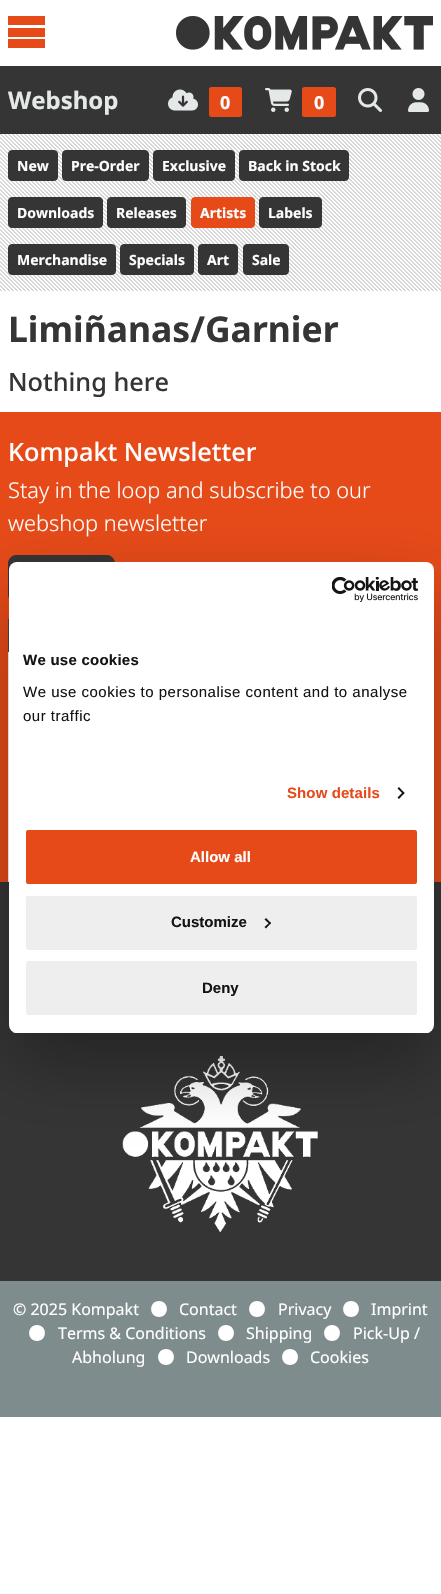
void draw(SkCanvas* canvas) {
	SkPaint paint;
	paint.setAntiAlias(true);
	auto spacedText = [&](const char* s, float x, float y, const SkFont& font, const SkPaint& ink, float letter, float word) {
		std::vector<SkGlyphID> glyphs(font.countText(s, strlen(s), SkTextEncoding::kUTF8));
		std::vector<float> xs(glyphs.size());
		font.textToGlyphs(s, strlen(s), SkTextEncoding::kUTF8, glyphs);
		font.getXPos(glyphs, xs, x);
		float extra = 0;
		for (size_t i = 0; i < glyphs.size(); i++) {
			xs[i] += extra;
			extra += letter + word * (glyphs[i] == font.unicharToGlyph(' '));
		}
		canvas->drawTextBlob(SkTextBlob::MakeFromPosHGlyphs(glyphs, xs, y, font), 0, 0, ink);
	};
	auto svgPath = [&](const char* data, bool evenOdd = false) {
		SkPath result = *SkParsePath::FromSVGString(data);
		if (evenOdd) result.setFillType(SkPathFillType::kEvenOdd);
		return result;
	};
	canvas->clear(0xffffffff);
	paint.setColor(0xffe64a19);
	canvas->drawRect(SkRect::MakeXYWH(8, 16, 37, 9), paint);
	canvas->drawRect(SkRect::MakeXYWH(8, 28, 37, 9), paint);
	canvas->drawRect(SkRect::MakeXYWH(8, 39, 37, 9), paint);
	canvas->drawImageRect(SkImages::DeferredFromEncodedData(SkData::MakeFromFileName("img1.png")), SkRect::MakeXYWH(176, 16, 257, 34), SkSamplingOptions());
	paint.setColor(0xff353535);
	canvas->drawRect(SkRect::MakeXYWH(0, 66, 441, 68), paint);
	SkFont f1(fontMgr->matchFamilyStyle("Noto Sans", SkFontStyle::Bold()), 24);
	f1.setSubpixel(true);
	paint.setColor(0xffe5e8e8);
	canvas->drawString("Webshop", 8, 109, f1, paint);
	canvas->drawImageRect(SkImages::DeferredFromEncodedData(SkData::MakeFromFileName("img2.png")), SkRect::MakeXYWH(168, 89, 30, 22), SkSamplingOptions());
	paint.setColor(0xffe64a19);
	canvas->drawRoundRect(SkRect::MakeXYWH(209, 87, 33, 30), 2.5, 2.5, paint);
	SkFont f2(fontMgr->matchFamilyStyle("Noto Sans", SkFontStyle::Bold()), 18);
	f2.setSubpixel(true);
	paint.setColor(0xffffffff);
	canvas->drawString("0", 220, 109, f2, paint);
	canvas->drawImageRect(SkImages::DeferredFromEncodedData(SkData::MakeFromFileName("img3.png")), SkRect::MakeXYWH(265, 88, 27, 24), SkSamplingOptions());
	paint.setColor(0xffe64a19);
	canvas->drawRoundRect(SkRect::MakeXYWH(302, 87, 34, 30), 2.5, 2.5, paint);
	paint.setColor(0xffffffff);
	canvas->drawString("0", 314, 109, f2, paint);
	canvas->drawImageRect(SkImages::DeferredFromEncodedData(SkData::MakeFromFileName("img4.png")), SkRect::MakeXYWH(358, 88, 24, 24), SkSamplingOptions());
	canvas->drawImageRect(SkImages::DeferredFromEncodedData(SkData::MakeFromFileName("img5.png")), SkRect::MakeXYWH(408, 88, 21, 24), SkSamplingOptions());
	canvas->drawImageRect(SkImages::DeferredFromEncodedData(SkData::MakeFromFileName("img6.png")), SkRect::MakeXYWH(0, 134, 441, 157), SkSamplingOptions());
	paint.setColor(0xff353535);
	canvas->drawRoundRect(SkRect::MakeXYWH(8.5, 150.5, 49, 30), 3.5, 3.5, paint);
	paint.setStroke(true);
	paint.setStrokeWidth(1);
	canvas->drawRoundRect(SkRect::MakeXYWH(8.5, 150.5, 49, 30), 3.5, 3.5, paint);
	SkFont f3(fontMgr->matchFamilyStyle("Noto Sans", SkFontStyle::Bold()), 14);
	f3.setSubpixel(true);
	paint.setStroke(false);
	paint.setColor(0xffffffff);
	canvas->drawString("New", 17, 171, f3, paint);
	paint.setColor(0xff353535);
	canvas->drawRoundRect(SkRect::MakeXYWH(62.5, 150.5, 86, 30), 3.5, 3.5, paint);
	paint.setStroke(true);
	canvas->drawRoundRect(SkRect::MakeXYWH(62.5, 150.5, 86, 30), 3.5, 3.5, paint);
	paint.setStroke(false);
	paint.setColor(0xffffffff);
	canvas->drawString("Pre-Order", 71, 171, f3, paint);
	paint.setColor(0xff353535);
	canvas->drawRoundRect(SkRect::MakeXYWH(153.5, 150.5, 81, 30), 3.5, 3.5, paint);
	paint.setStroke(true);
	canvas->drawRoundRect(SkRect::MakeXYWH(153.5, 150.5, 81, 30), 3.5, 3.5, paint);
	paint.setStroke(false);
	paint.setColor(0xffffffff);
	canvas->drawString("Exclusive", 162, 171, f3, paint);
	paint.setColor(0xff353535);
	canvas->drawRoundRect(SkRect::MakeXYWH(239.5, 150.5, 109, 30), 3.5, 3.5, paint);
	paint.setStroke(true);
	canvas->drawRoundRect(SkRect::MakeXYWH(239.5, 150.5, 109, 30), 3.5, 3.5, paint);
	paint.setStroke(false);
	paint.setColor(0xffffffff);
	canvas->drawString("Back in Stock", 248, 171, f3, paint);
	paint.setColor(0xff353535);
	canvas->drawRoundRect(SkRect::MakeXYWH(8.5, 197.5, 94, 30), 3.5, 3.5, paint);
	paint.setStroke(true);
	canvas->drawRoundRect(SkRect::MakeXYWH(8.5, 197.5, 94, 30), 3.5, 3.5, paint);
	paint.setStroke(false);
	paint.setColor(0xffffffff);
	canvas->drawString("Downloads", 17, 218, f3, paint);
	paint.setColor(0xff353535);
	canvas->drawRoundRect(SkRect::MakeXYWH(107.5, 197.5, 78, 30), 3.5, 3.5, paint);
	paint.setStroke(true);
	canvas->drawRoundRect(SkRect::MakeXYWH(107.5, 197.5, 78, 30), 3.5, 3.5, paint);
	paint.setStroke(false);
	paint.setColor(0xffffffff);
	canvas->drawString("Releases", 116, 218, f3, paint);
	paint.setColor(0xffe64a19);
	canvas->drawRoundRect(SkRect::MakeXYWH(191.5, 197.5, 63, 30), 3.5, 3.5, paint);
	paint.setStroke(true);
	canvas->drawRoundRect(SkRect::MakeXYWH(191.5, 197.5, 63, 30), 3.5, 3.5, paint);
	paint.setStroke(false);
	paint.setColor(0xffffffff);
	canvas->drawString("Artists", 200, 218, f3, paint);
	paint.setColor(0xff353535);
	canvas->drawRoundRect(SkRect::MakeXYWH(259.5, 197.5, 62, 30), 3.5, 3.5, paint);
	paint.setStroke(true);
	canvas->drawRoundRect(SkRect::MakeXYWH(259.5, 197.5, 62, 30), 3.5, 3.5, paint);
	paint.setStroke(false);
	paint.setColor(0xffffffff);
	canvas->drawString("Labels", 268, 218, f3, paint);
	paint.setColor(0xff353535);
	canvas->drawRoundRect(SkRect::MakeXYWH(8.5, 244.5, 107, 30), 3.5, 3.5, paint);
	paint.setStroke(true);
	canvas->drawRoundRect(SkRect::MakeXYWH(8.5, 244.5, 107, 30), 3.5, 3.5, paint);
	paint.setStroke(false);
	paint.setColor(0xffffffff);
	canvas->drawString("Merchandise", 17, 265, f3, paint);
	paint.setColor(0xff353535);
	canvas->drawRoundRect(SkRect::MakeXYWH(120.5, 244.5, 73, 30), 3.5, 3.5, paint);
	paint.setStroke(true);
	canvas->drawRoundRect(SkRect::MakeXYWH(120.5, 244.5, 73, 30), 3.5, 3.5, paint);
	paint.setStroke(false);
	paint.setColor(0xffffffff);
	canvas->drawString("Specials", 129, 265, f3, paint);
	paint.setColor(0xff353535);
	canvas->drawRoundRect(SkRect::MakeXYWH(198.5, 244.5, 39, 30), 3.5, 3.5, paint);
	paint.setStroke(true);
	canvas->drawRoundRect(SkRect::MakeXYWH(198.5, 244.5, 39, 30), 3.5, 3.5, paint);
	paint.setStroke(false);
	paint.setColor(0xffffffff);
	canvas->drawString("Art", 207, 265, f3, paint);
	paint.setColor(0xff353535);
	canvas->drawRoundRect(SkRect::MakeXYWH(243.5, 244.5, 45, 30), 3.5, 3.5, paint);
	paint.setStroke(true);
	canvas->drawRoundRect(SkRect::MakeXYWH(243.5, 244.5, 45, 30), 3.5, 3.5, paint);
	paint.setStroke(false);
	paint.setColor(0xffffffff);
	canvas->drawString("Sale", 252, 265, f3, paint);
	SkFont f4(fontMgr->matchFamilyStyle("Noto Sans", SkFontStyle::Bold()), 35.5);
	f4.setSubpixel(true);
	paint.setColor(0xff353535);
	canvas->drawString("Limiñanas/Garnier", 8, 342, f4, paint);
	SkFont f5(fontMgr->matchFamilyStyle("Noto Sans", SkFontStyle(500, SkFontStyle::kNormal_Width, SkFontStyle::kUpright_Slant)), 25.25);
	f5.setSubpixel(true);
	canvas->drawString("Nothing here", 8, 391, f5, paint);
	paint.setColor(0xffe64a19);
	canvas->drawRect(SkRect::MakeXYWH(0, 412, 441, 470), paint);
	paint.setColor(0xffffffff);
	canvas->drawString("Kompakt Newsletter", 8, 461, f5, paint);
	SkFont f6(fontMgr->matchFamilyStyle("Noto Sans", SkFontStyle(300, SkFontStyle::kNormal_Width, SkFontStyle::kUpright_Slant)), 21.75);
	f6.setSubpixel(true);
	canvas->drawString("Stay in the loop and subscribe to our", 8, 498, f6, paint);
	canvas->drawString("webshop newsletter", 8, 531, f6, paint);
	paint.setColor(0xff353535);
	canvas->drawRoundRect(SkRect::MakeXYWH(8.5, 555.5, 106, 47), 7.5, 7.5, paint);
	paint.setStroke(true);
	canvas->drawRoundRect(SkRect::MakeXYWH(8.5, 555.5, 106, 47), 7.5, 7.5, paint);
	canvas->drawImageRect(SkImages::DeferredFromEncodedData(SkData::MakeFromFileName("img7.png")), SkRect::MakeXYWH(8, 619, 1, 263), SkSamplingOptions());
	paint.setStroke(false);
	canvas->drawRect(SkRect::MakeXYWH(0, 882, 441, 399), paint);
	canvas->drawImageRect(SkImages::DeferredFromEncodedData(SkData::MakeFromFileName("img8.png")), SkRect::MakeXYWH(122, 1056, 196, 177), SkSamplingOptions());
	paint.setColor(0xff7f8c8d);
	canvas->drawRect(SkRect::MakeXYWH(0, 1281, 441, 136), paint);
	SkFont f7(fontMgr->matchFamilyStyle("Noto Sans", SkFontStyle::Normal()), 16);
	f7.setSubpixel(true);
	paint.setColor(0xffffffff);
	canvas->drawString("© 2025 Kompakt", 13, 1315, f7, paint);
	canvas->drawPath(svgPath("M159 1317C169.5 1317 169.5 1301 159 1301C148.5 1301 148.5 1317 159 1317Z"), paint);
	canvas->drawString("Contact", 179, 1315, f7, paint);
	canvas->drawPath(svgPath("M257 1317C267.5 1317 267.5 1301 257 1301C246.5 1301 246.5 1317 257 1317Z"), paint);
	canvas->drawString("Privacy", 278, 1315, f7, paint);
	canvas->drawPath(svgPath("M351 1317C361.5 1317 361.5 1301 351 1301C340.5 1301 340.5 1317 351 1317Z"), paint);
	canvas->drawString("Imprint", 371, 1315, f7, paint);
	canvas->drawPath(svgPath("M37 1341C47.5 1341 47.5 1325 37 1325C26.5 1325 26.5 1341 37 1341Z"), paint);
	canvas->drawString("Terms & Conditions", 58, 1339, f7, paint);
	canvas->drawPath(svgPath("M226 1341C236.5 1341 236.5 1325 226 1325C215.5 1325 215.5 1341 226 1341Z"), paint);
	canvas->drawString("Shipping", 246, 1339, f7, paint);
	canvas->drawPath(svgPath("M332 1341C342.5 1341 342.5 1325 332 1325C321.5 1325 321.5 1341 332 1341Z"), paint);
	canvas->drawString("Pick-Up /", 353, 1339, f7, paint);
	canvas->drawString("Abholung", 72, 1363, f7, paint);
	canvas->drawPath(svgPath("M166 1365C176.5 1365 176.5 1349 166 1349C155.5 1349 155.5 1365 166 1365Z"), paint);
	canvas->drawString("Downloads", 186, 1363, f7, paint);
	canvas->drawPath(svgPath("M290 1365C300.5 1365 300.5 1349 290 1349C279.5 1349 279.5 1365 290 1365Z"), paint);
	canvas->drawString("Cookies", 310, 1363, f7, paint);
	paint.setColor(0x4d000000);
	paint.setMaskFilter(SkMaskFilter::MakeBlur(kNormal_SkBlurStyle, 34));
	canvas->drawRoundRect(SkRect::MakeXYWH(9, 594, 425, 471), 8, 8, paint);
	paint.setMaskFilter(nullptr);
	paint.setColor(0xffffffff);
	canvas->drawRoundRect(SkRect::MakeXYWH(9, 562, 425, 471), 8, 8, paint);
	canvas->drawImageRect(SkImages::DeferredFromEncodedData(SkData::MakeFromFileName("img9.png")), SkRect::MakeXYWH(332, 577, 87, 25), SkSamplingOptions());
	SkFont f8(fontMgr->matchFamilyStyle("Liberation Sans", SkFontStyle::Bold()), 15);
	f8.setSubpixel(true);
	paint.setColor(0xff141414);
	spacedText("We use cookies", 23, 665, f8, paint, 0.25, 0);
	SkFont f9(fontMgr->matchFamilyStyle("Liberation Sans", SkFontStyle::Normal()), 15);
	f9.setSubpixel(true);
	spacedText("We use cookies to personalise content and to analyse", 23, 697, f9, paint, 0.5, 0);
	spacedText("our traffic", 23, 721, f9, paint, 0.5, 0);
	paint.setColor(0xffe64a19);
	spacedText("Show details", 287, 798, f8, paint, 0.1, 0);
	paint.setColor(0xff141414);
	canvas->drawPath(svgPath("M399 787L404.5 793L403.5 794.5L397.5 788.5Z"), paint);
	canvas->drawPath(svgPath("M403.5 791.5L404.5 793L399 799L397.5 797.5Z"), paint);
	canvas->save();
	canvas->clipPath(svgPath("M17 562H426C430.5 562 434 565.5 434 570V1025C434 1029.5 430.5 1033 426 1033H17C12.5 1033 9 1029.5 9 1025V570C9 565.5 12.5 562 17 562Z"), true);
	paint.setColor(0xffffffff);
	canvas->drawRect(SkRect::MakeXYWH(9, 1032, 425, 1), paint);
	canvas->restore();
	paint.setColor(0xffe64a19);
	canvas->drawRoundRect(SkRect::MakeXYWH(25, 829, 393, 56), 3, 3, paint);
	paint.setStroke(true);
	paint.setStrokeWidth(2);
	paint.setColor(0xffffffff);
	canvas->drawRoundRect(SkRect::MakeXYWH(25, 829, 393, 56), 3, 3, paint);
	paint.setStroke(false);
	canvas->drawString("Allow all", 190, 862, f8, paint);
	paint.setColor(0xffeeeeee);
	canvas->drawRoundRect(SkRect::MakeXYWH(25, 895, 393, 56), 3, 3, paint);
	paint.setStroke(true);
	paint.setColor(0xffffffff);
	canvas->drawRoundRect(SkRect::MakeXYWH(25, 895, 393, 56), 3, 3, paint);
	paint.setStroke(false);
	paint.setColor(0xff141414);
	canvas->drawString("Customize", 171, 927, f8, paint);
	canvas->drawPath(svgPath("M266 918L271 923L270 924.5L264.5 919.5Z"), paint);
	canvas->drawPath(svgPath("M270 922L271 923L266 928.5L264.5 927Z"), paint);
	paint.setColor(0xffeeeeee);
	canvas->drawRoundRect(SkRect::MakeXYWH(25, 960, 393, 56), 3, 3, paint);
	paint.setStroke(true);
	paint.setColor(0xffffffff);
	canvas->drawRoundRect(SkRect::MakeXYWH(25, 960, 393, 56), 3, 3, paint);
	paint.setStroke(false);
	paint.setColor(0xff141414);
	canvas->drawString("Deny", 202, 993, f8, paint);
}
